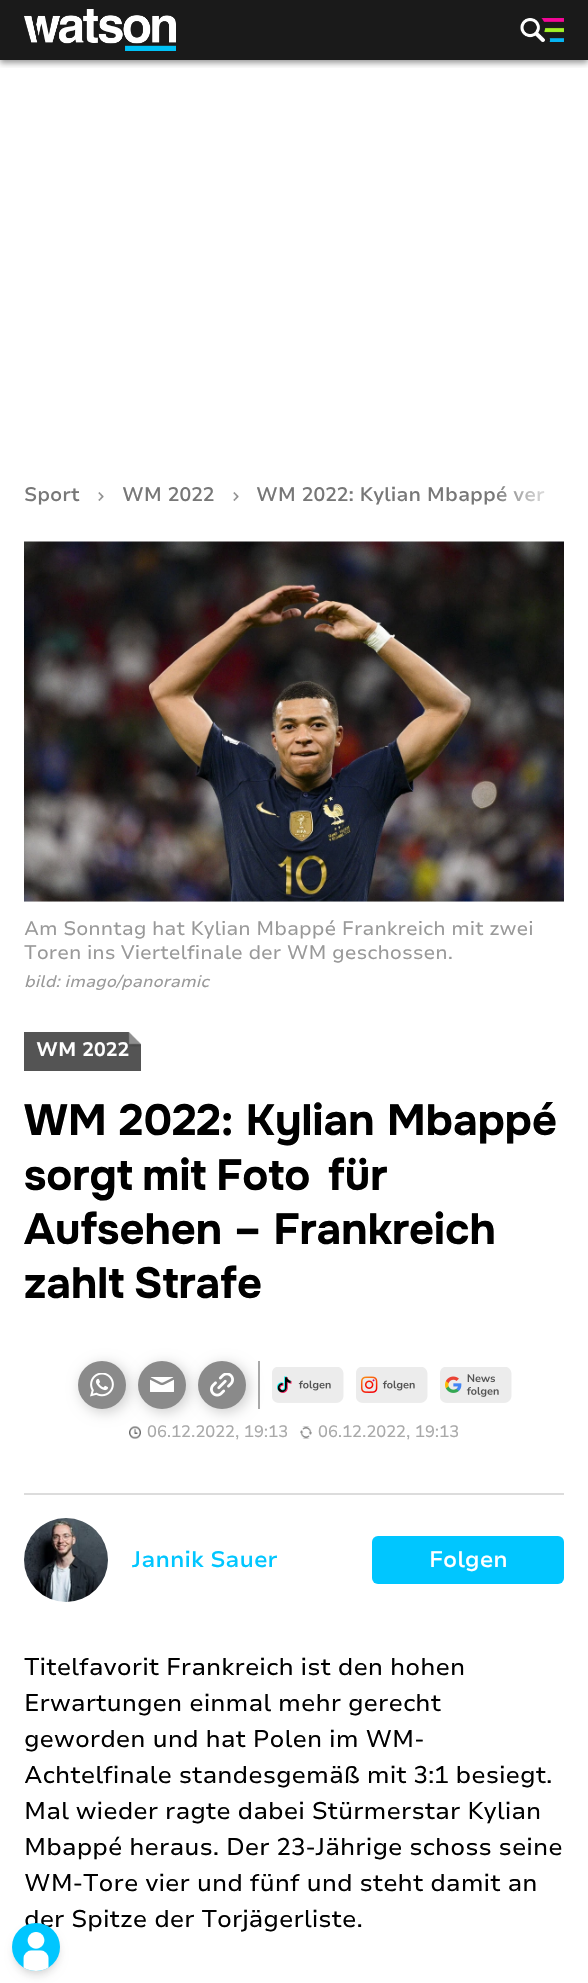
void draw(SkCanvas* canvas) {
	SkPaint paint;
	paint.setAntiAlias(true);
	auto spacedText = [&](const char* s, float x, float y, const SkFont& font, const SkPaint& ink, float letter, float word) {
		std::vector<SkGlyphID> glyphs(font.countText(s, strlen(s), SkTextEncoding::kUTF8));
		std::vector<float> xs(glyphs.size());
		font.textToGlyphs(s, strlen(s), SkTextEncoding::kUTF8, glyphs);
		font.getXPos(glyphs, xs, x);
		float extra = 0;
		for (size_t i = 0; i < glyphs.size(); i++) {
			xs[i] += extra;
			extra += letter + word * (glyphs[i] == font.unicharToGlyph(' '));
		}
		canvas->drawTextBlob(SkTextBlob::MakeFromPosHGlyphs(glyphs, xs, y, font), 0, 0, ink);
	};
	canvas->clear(0xffffffff);
	paint.setColor(0xff1a1a1a);
	canvas->drawRect(SkRect::MakeXYWH(0, 0, 588, 60), paint);
	canvas->save();
	canvas->clipRect(SkRect::MakeXYWH(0, 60, 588, 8));
	paint.setColor(0x66000000);
	paint.setMaskFilter(SkMaskFilter::MakeBlur(kNormal_SkBlurStyle, 3));
	canvas->drawRect(SkRect::MakeXYWH(0, 3, 588, 60), paint);
	paint.setMaskFilter(nullptr);
	canvas->restore();
	canvas->drawImageRect(SkImages::DeferredFromEncodedData(SkData::MakeFromFileName("img1.png")), SkRect::MakeXYWH(24, 9, 152, 42), SkSamplingOptions());
	canvas->drawImageRect(SkImages::DeferredFromEncodedData(SkData::MakeFromFileName("img2.png")), SkRect::MakeXYWH(520, 18, 44, 24), SkSamplingOptions());
	SkFont f1(fontMgr->matchFamilyStyle("Nunito Sans", SkFontStyle(600, SkFontStyle::kNormal_Width, SkFontStyle::kUpright_Slant)), 19.5);
	f1.setSubpixel(true);
	paint.setColor(0xff777777);
	canvas->drawString("WM 2022: Kylian Mbappé ver", 256, 501, f1, paint);
	canvas->drawString("Sport", 24, 501, f1, paint);
	canvas->drawImageRect(SkImages::DeferredFromEncodedData(SkData::MakeFromFileName("img3.png")), SkRect::MakeXYWH(98, 492, 6, 9), SkSamplingOptions());
	canvas->drawString("WM 2022", 122, 501, f1, paint);
	canvas->drawImageRect(SkImages::DeferredFromEncodedData(SkData::MakeFromFileName("img3.png")), SkRect::MakeXYWH(233, 492, 6, 9), SkSamplingOptions());
	{
		const SkColor colors[] = {0x00ffffff, 0xffffffff};
		const float stops[] = {0, 1};
		const SkPoint ends[] = {{492, 496}, {564, 496}};
		paint.setShader(SkGradientShader::MakeLinear(ends, colors, stops, 2, SkTileMode::kClamp));
		paint.setAlpha(255);
	}
	canvas->drawRect(SkRect::MakeXYWH(494, 486, 51, 16), paint);
	paint.setShader(nullptr);
	paint.setColor(0xffececec);
	canvas->drawRect(SkRect::MakeXYWH(24, 901, 540, 1), paint);
	canvas->drawImageRect(SkImages::DeferredFromEncodedData(SkData::MakeFromFileName("img4.png")), SkRect::MakeXYWH(24, 541, 540, 361), SkSamplingOptions());
	SkFont f2(fontMgr->matchFamilyStyle("Nunito Sans", SkFontStyle::Normal()), 19.5);
	f2.setSubpixel(true);
	paint.setColor(0xff999999);
	canvas->drawString("Am Sonntag hat Kylian Mbappé Frankreich mit zwei", 24, 935, f2, paint);
	canvas->drawString("Toren ins Viertelfinale der WM geschossen.", 24, 959, f2, paint);
	SkFont f3(fontMgr->matchFamilyStyle("Nunito Sans", SkFontStyle::Italic()), 16.5);
	f3.setSubpixel(true);
	canvas->drawString("bild: imago/panoramic", 24, 987, f3, paint);
	paint.setColor(0xff545454);
	canvas->drawRect(SkRect::MakeXYWH(24, 1032, 117, 39), paint);
	canvas->drawImageRect(SkImages::DeferredFromEncodedData(SkData::MakeFromFileName("img5.png")), SkRect::MakeXYWH(128, 1032, 13, 15), SkSamplingOptions());
	SkFont f4(fontMgr->matchFamilyStyle("Nunito Sans", SkFontStyle::Bold()), 19.5);
	f4.setSubpixel(true);
	paint.setColor(0xffffffff);
	canvas->drawString("WM 2022", 36, 1056, f4, paint);
	SkFont f5(fontMgr->matchFamilyStyle("Onest", SkFontStyle::Bold()), 43.5);
	f5.setSubpixel(true);
	paint.setColor(0xff000000);
	canvas->drawString("WM 2022: Kylian Mbappé", 24, 1135, f5, paint);
	spacedText("sorgt mit Foto", 24, 1190, f5, paint, 0, -2.5);
	spacedText("für", 328, 1190, f5, paint, 0, -2.5);
	canvas->drawString("Aufsehen – Frankreich", 24, 1244, f5, paint);
	spacedText("zahlt Strafe", 24, 1298, f5, paint, 0, -2.5);
	canvas->drawImageRect(SkImages::DeferredFromEncodedData(SkData::MakeFromFileName("img12.png")), SkRect::MakeXYWH(129, 1426, 12, 13), SkSamplingOptions());
	paint.setColor(0x33000000);
	paint.setMaskFilter(SkMaskFilter::MakeBlur(kNormal_SkBlurStyle, 7));
	canvas->drawRoundRect(SkRect::MakeXYWH(81, 1364, 48, 48), 24, 24, paint);
	paint.setMaskFilter(nullptr);
	paint.setColor(0xff8a8a8a);
	canvas->drawCircle(102, 1385, 24, paint);
	canvas->drawImageRect(SkImages::DeferredFromEncodedData(SkData::MakeFromFileName("img6.png")), SkRect::MakeXYWH(90, 1373, 24, 24), SkSamplingOptions());
	paint.setColor(0x33000000);
	paint.setMaskFilter(SkMaskFilter::MakeBlur(kNormal_SkBlurStyle, 7));
	canvas->drawRoundRect(SkRect::MakeXYWH(141, 1364, 48, 48), 24, 24, paint);
	paint.setMaskFilter(nullptr);
	paint.setColor(0xff8a8a8a);
	canvas->drawCircle(162, 1385, 24, paint);
	canvas->drawImageRect(SkImages::DeferredFromEncodedData(SkData::MakeFromFileName("img7.png")), SkRect::MakeXYWH(150, 1377, 24, 15), SkSamplingOptions());
	paint.setColor(0xffa9a9a9);
	canvas->drawRect(SkRect::MakeXYWH(258, 1361, 2, 48), paint);
	paint.setColor(0x33000000);
	paint.setMaskFilter(SkMaskFilter::MakeBlur(kNormal_SkBlurStyle, 7));
	canvas->drawRoundRect(SkRect::MakeXYWH(201, 1364, 48, 48), 24, 24, paint);
	paint.setMaskFilter(nullptr);
	paint.setColor(0xff8a8a8a);
	canvas->drawCircle(222, 1385, 24, paint);
	canvas->drawImageRect(SkImages::DeferredFromEncodedData(SkData::MakeFromFileName("img8.png")), SkRect::MakeXYWH(210, 1373, 24, 24), SkSamplingOptions());
	canvas->drawImageRect(SkImages::DeferredFromEncodedData(SkData::MakeFromFileName("img9.png")), SkRect::MakeXYWH(272, 1367, 72, 36), SkSamplingOptions());
	canvas->drawImageRect(SkImages::DeferredFromEncodedData(SkData::MakeFromFileName("img10.png")), SkRect::MakeXYWH(356, 1367, 72, 36), SkSamplingOptions());
	canvas->drawImageRect(SkImages::DeferredFromEncodedData(SkData::MakeFromFileName("img11.png")), SkRect::MakeXYWH(440, 1367, 72, 36), SkSamplingOptions());
	SkFont f6(fontMgr->matchFamilyStyle("Nunito Sans", SkFontStyle::Normal()), 16.5);
	f6.setSubpixel(true);
	paint.setColor(0xffa9a9a9);
	canvas->drawString("06.12.2022, 19:13", 147, 1437, f6, paint);
	canvas->drawImageRect(SkImages::DeferredFromEncodedData(SkData::MakeFromFileName("img13.png")), SkRect::MakeXYWH(300, 1426, 12, 13), SkSamplingOptions());
	canvas->drawString("06.12.2022, 19:13", 318, 1437, f6, paint);
	paint.setColor(0xffdcdcdc);
	canvas->drawRect(SkRect::MakeXYWH(24, 1493, 540, 2), paint);
	canvas->drawImageRect(SkImages::DeferredFromEncodedData(SkData::MakeFromFileName("img14.png")), SkRect::MakeXYWH(24, 1518, 84, 84), SkSamplingOptions());
	SkFont f7(fontMgr->matchFamilyStyle("Nunito Sans", SkFontStyle(600, SkFontStyle::kNormal_Width, SkFontStyle::kUpright_Slant)), 22.5);
	f7.setSubpixel(true);
	paint.setColor(0xff00c6ff);
	canvas->drawString("Jannik Sauer", 132, 1567, f7, paint);
	canvas->drawRoundRect(SkRect::MakeXYWH(372, 1536, 192, 48), 6, 6, paint);
	paint.setColor(0xffffffff);
	canvas->drawString("Folgen", 429, 1567, f7, paint);
	SkFont f8(fontMgr->matchFamilyStyle("Nunito Sans", SkFontStyle::Normal()), 24);
	f8.setSubpixel(true);
	paint.setColor(0xff000000);
	canvas->drawString("Titelfavorit Frankreich ist den hohen", 24, 1675, f8, paint);
	canvas->drawString("Erwartungen einmal mehr gerecht", 24, 1711, f8, paint);
	canvas->drawString("geworden und hat Polen im WM-", 24, 1747, f8, paint);
	canvas->drawString("Achtelfinale standesgemäß mit 3:1 besiegt.", 24, 1783, f8, paint);
	canvas->drawString("Mal wieder ragte dabei Stürmerstar Kylian", 24, 1819, f8, paint);
	canvas->drawString("Mbappé heraus. Der 23-Jährige schoss seine", 24, 1855, f8, paint);
	canvas->drawString("WM-Tore vier und fünf und steht damit an", 24, 1891, f8, paint);
	canvas->drawString("der Spitze der Torjägerliste.", 24, 1927, f8, paint);
	paint.setColor(0x1a000000);
	paint.setMaskFilter(SkMaskFilter::MakeBlur(kNormal_SkBlurStyle, 3));
	canvas->drawRoundRect(SkRect::MakeXYWH(15, 1929, 42, 42), 21, 21, paint);
	paint.setMaskFilter(nullptr);
	paint.setMaskFilter(SkMaskFilter::MakeBlur(kNormal_SkBlurStyle, 4.5));
	canvas->drawRoundRect(SkRect::MakeXYWH(14, 1931, 45, 45), 22.5, 22.5, paint);
	paint.setMaskFilter(nullptr);
	paint.setColor(0xff00c6ff);
	canvas->drawCircle(36, 1947, 24, paint);
	canvas->drawImageRect(SkImages::DeferredFromEncodedData(SkData::MakeFromFileName("img15.png")), SkRect::MakeXYWH(23, 1932, 26, 39), SkSamplingOptions());
}
